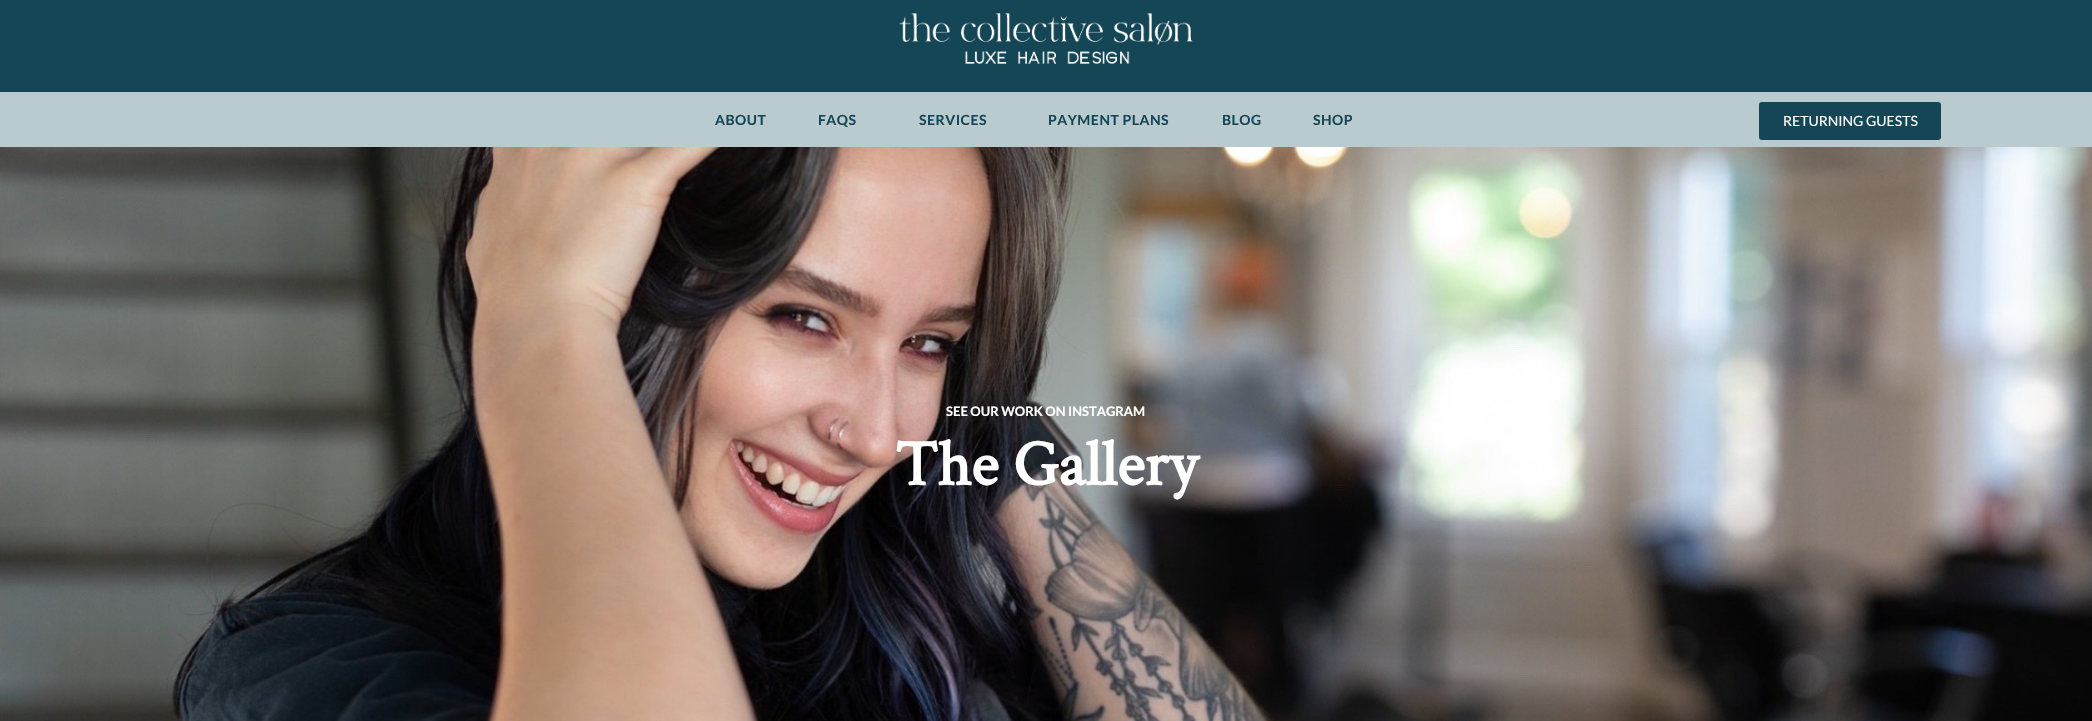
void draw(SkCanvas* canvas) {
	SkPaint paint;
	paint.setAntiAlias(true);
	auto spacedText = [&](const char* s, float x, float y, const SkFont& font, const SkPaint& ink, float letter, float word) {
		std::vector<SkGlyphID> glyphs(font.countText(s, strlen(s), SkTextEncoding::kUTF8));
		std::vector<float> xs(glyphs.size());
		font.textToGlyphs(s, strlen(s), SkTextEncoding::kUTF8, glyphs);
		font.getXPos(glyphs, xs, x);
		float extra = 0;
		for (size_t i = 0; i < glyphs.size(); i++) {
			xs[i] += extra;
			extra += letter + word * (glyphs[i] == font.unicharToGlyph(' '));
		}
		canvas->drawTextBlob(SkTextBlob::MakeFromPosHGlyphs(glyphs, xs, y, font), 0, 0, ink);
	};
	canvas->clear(0xff154656);
	canvas->drawImageRect(SkImages::DeferredFromEncodedData(SkData::MakeFromFileName("img1.png")), SkRect::MakeXYWH(899, 13, 294, 51), SkSamplingOptions());
	paint.setColor(0xffb9cbcf);
	canvas->drawRect(SkRect::MakeXYWH(0, 92, 2092, 55), paint);
	SkFont f1(fontMgr->matchFamilyStyle("Lato", SkFontStyle::Bold()), 14);
	f1.setSubpixel(true);
	paint.setColor(0xff154656);
	spacedText("ABOUT", 715, 125, f1, paint, 0.5, 0);
	spacedText("FAQS", 818, 125, f1, paint, 0.5, 0);
	spacedText("SERVICES", 919, 125, f1, paint, 0.5, 0);
	spacedText("PAYMENT PLANS", 1048, 125, f1, paint, 0.5, 0);
	spacedText("BLOG", 1222, 125, f1, paint, 0.5, 0);
	spacedText("SHOP", 1313, 125, f1, paint, 0.5, 0);
	canvas->drawRoundRect(SkRect::MakeXYWH(1759, 102, 182, 38), 3, 3, paint);
	SkFont f2(fontMgr->matchFamilyStyle("Lato", SkFontStyle::Normal()), 14);
	f2.setSubpixel(true);
	paint.setColor(0xffffffff);
	canvas->drawString("RETURNING GUESTS", 1783, 126, f2, paint);
	canvas->drawImageRect(SkImages::DeferredFromEncodedData(SkData::MakeFromFileName("img2.png")), SkRect::MakeXYWH(0, 147, 2092, 574), SkSamplingOptions());
	SkFont f3(fontMgr->matchFamilyStyle("Lato", SkFontStyle::Bold()), 13);
	f3.setSubpixel(true);
	canvas->drawString("SEE OUR WORK ON INSTAGRAM", 946, 416, f3, paint);
	SkFont f4(fontMgr->matchFamilyStyle("Crimson Text", SkFontStyle::Bold()), 65);
	f4.setSubpixel(true);
	canvas->drawString("The Gallery", 895, 485, f4, paint);
}
